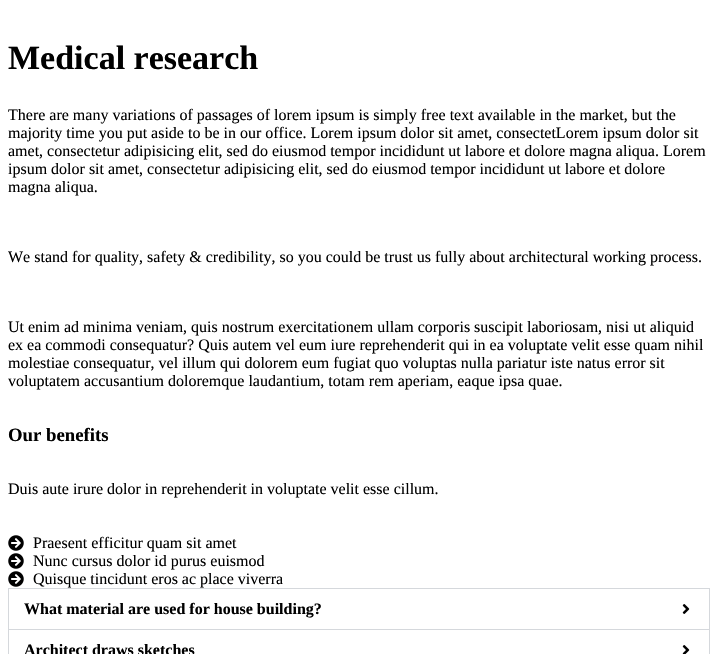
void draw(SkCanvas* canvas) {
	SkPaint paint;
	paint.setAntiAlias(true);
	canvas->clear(0xffffffff);
	SkFont f1(fontMgr->matchFamilyStyle("Liberation Serif", SkFontStyle::Bold()), 34);
	f1.setSubpixel(true);
	paint.setColor(0xff000000);
	canvas->drawString("Medical research", 8, 69, f1, paint);
	SkFont f2(fontMgr->matchFamilyStyle("Liberation Serif", SkFontStyle::Normal()), 16);
	f2.setSubpixel(true);
	canvas->drawString("There are many variations of passages of lorem ipsum is simply free text available in the market, but the", 8, 120, f2, paint);
	canvas->drawString("majority time you put aside to be in our office. Lorem ipsum dolor sit amet, consectetLorem ipsum dolor sit", 8, 138, f2, paint);
	canvas->drawString("amet, consectetur adipisicing elit, sed do eiusmod tempor incididunt ut labore et dolore magna aliqua. Lorem", 8, 156, f2, paint);
	canvas->drawString("ipsum dolor sit amet, consectetur adipisicing elit, sed do eiusmod tempor incididunt ut labore et dolore", 8, 174, f2, paint);
	canvas->drawString("magna aliqua.", 8, 192, f2, paint);
	canvas->drawString("We stand for quality, safety & credibility, so you could be trust us fully about architectural working process.", 8, 262, f2, paint);
	canvas->drawString("Ut enim ad minima veniam, quis nostrum exercitationem ullam corporis suscipit laboriosam, nisi ut aliquid", 8, 332, f2, paint);
	canvas->drawString("ex ea commodi consequatur? Quis autem vel eum iure reprehenderit qui in ea voluptate velit esse quam nihil", 8, 350, f2, paint);
	canvas->drawString("molestiae consequatur, vel illum qui dolorem eum fugiat quo voluptas nulla pariatur iste natus error sit", 8, 368, f2, paint);
	canvas->drawString("voluptatem accusantium doloremque laudantium, totam rem aperiam, eaque ipsa quae.", 8, 386, f2, paint);
	SkFont f3(fontMgr->matchFamilyStyle("Liberation Serif", SkFontStyle::Bold()), 18.75);
	f3.setSubpixel(true);
	canvas->drawString("Our benefits", 8, 441, f3, paint);
	canvas->drawString("Duis aute irure dolor in reprehenderit in voluptate velit esse cillum.", 8, 494, f2, paint);
	canvas->drawImageRect(SkImages::DeferredFromEncodedData(SkData::MakeFromFileName("img1.png")), SkRect::MakeXYWH(8, 535, 16, 16), SkSamplingOptions());
	canvas->drawString("Praesent efficitur quam sit amet", 33, 548, f2, paint);
	canvas->drawImageRect(SkImages::DeferredFromEncodedData(SkData::MakeFromFileName("img1.png")), SkRect::MakeXYWH(8, 553, 16, 16), SkSamplingOptions());
	canvas->drawString("Nunc cursus dolor id purus euismod", 33, 566, f2, paint);
	canvas->drawImageRect(SkImages::DeferredFromEncodedData(SkData::MakeFromFileName("img1.png")), SkRect::MakeXYWH(8, 571, 16, 16), SkSamplingOptions());
	canvas->drawString("Quisque tincidunt eros ac place viverra", 33, 584, f2, paint);
	paint.setStroke(true);
	paint.setStrokeWidth(1);
	paint.setColor(0xffd5d8dc);
	canvas->drawRect(SkRect::MakeXYWH(8.5, 588.5, 701, 41), paint);
	SkFont f4(fontMgr->matchFamilyStyle("Liberation Serif", SkFontStyle::Bold()), 16);
	f4.setSubpixel(true);
	paint.setStroke(false);
	paint.setColor(0xff000000);
	canvas->drawString("What material are used for house building?", 24, 614, f4, paint);
	canvas->drawImageRect(SkImages::DeferredFromEncodedData(SkData::MakeFromFileName("img2.png")), SkRect::MakeXYWH(682, 604, 8, 10), SkSamplingOptions());
	paint.setColor(0xffd5d8dc);
	canvas->drawRect(SkRect::MakeXYWH(709, 630, 1, 24), paint);
	canvas->drawRect(SkRect::MakeXYWH(8, 630, 1, 24), paint);
	paint.setColor(0xff000000);
	canvas->drawString("Architect draws sketches", 24, 655, f4, paint);
	canvas->drawImageRect(SkImages::DeferredFromEncodedData(SkData::MakeFromFileName("img3.png")), SkRect::MakeXYWH(682, 645, 8, 9), SkSamplingOptions());
}
